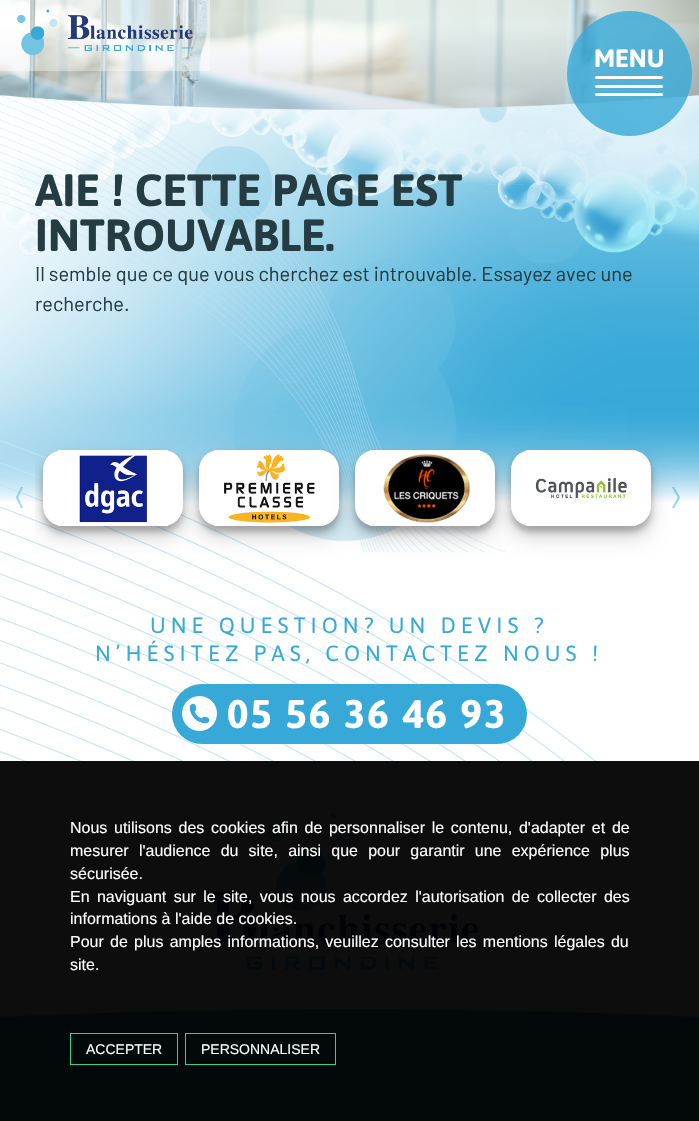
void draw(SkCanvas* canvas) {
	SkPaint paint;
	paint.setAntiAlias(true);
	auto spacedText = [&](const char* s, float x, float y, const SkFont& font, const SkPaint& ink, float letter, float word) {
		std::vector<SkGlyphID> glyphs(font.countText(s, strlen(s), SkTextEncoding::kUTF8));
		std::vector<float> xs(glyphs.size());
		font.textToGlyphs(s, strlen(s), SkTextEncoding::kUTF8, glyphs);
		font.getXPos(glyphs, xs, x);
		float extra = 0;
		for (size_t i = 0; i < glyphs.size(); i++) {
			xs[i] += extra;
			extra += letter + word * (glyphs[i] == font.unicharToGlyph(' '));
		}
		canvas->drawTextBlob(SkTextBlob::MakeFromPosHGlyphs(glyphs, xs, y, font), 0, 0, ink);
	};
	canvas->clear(0xffffffff);
	canvas->drawImageRect(SkImages::DeferredFromEncodedData(SkData::MakeFromFileName("img3.png")), SkRect::MakeXYWH(0, 94, 699, 458), SkSamplingOptions());
	canvas->drawImageRect(SkImages::DeferredFromEncodedData(SkData::MakeFromFileName("img1.png")), SkRect::MakeXYWH(0, 0, 699, 110), SkSamplingOptions());
	canvas->drawImageRect(SkImages::DeferredFromEncodedData(SkData::MakeFromFileName("img2.png")), SkRect::MakeXYWH(0, 0, 210, 71), SkSamplingOptions());
	paint.setColor(0xcc37a9d8);
	canvas->drawCircle(629.5, 73.5, 62.5, paint);
	SkFont f1(fontMgr->matchFamilyStyle("Asap", SkFontStyle::Bold()), 25);
	f1.setSubpixel(true);
	paint.setColor(0xffffffff);
	canvas->drawString("MENU", 594, 67, f1, paint);
	canvas->drawRoundRect(SkRect::MakeXYWH(595, 76, 68, 3), 1.5, 1.5, paint);
	canvas->drawRoundRect(SkRect::MakeXYWH(595, 85, 68, 3), 1.5, 1.5, paint);
	canvas->drawRoundRect(SkRect::MakeXYWH(595, 93, 68, 3), 1.5, 1.5, paint);
	SkFont f2(fontMgr->matchFamilyStyle("Asap", SkFontStyle::Bold()), 45);
	f2.setSubpixel(true);
	paint.setColor(0xff243c42);
	canvas->drawString("AIE ! CETTE PAGE EST", 35, 206, f2, paint);
	canvas->drawString("INTROUVABLE.", 35, 251, f2, paint);
	SkFont f3(fontMgr->matchFamilyStyle("Barlow", SkFontStyle::Normal()), 20);
	f3.setSubpixel(true);
	canvas->drawString("Il semble que ce que vous cherchez est introuvable. Essayez avec une", 35, 281, f3, paint);
	canvas->drawString("recherche.", 35, 311, f3, paint);
	canvas->drawImageRect(SkImages::DeferredFromEncodedData(SkData::MakeFromFileName("img4.png")), SkRect::MakeXYWH(0, 440, 699, 578), SkSamplingOptions());
	paint.setColor(0x3b000000);
	paint.setMaskFilter(SkMaskFilter::MakeBlur(kNormal_SkBlurStyle, 3));
	canvas->drawRoundRect(SkRect::MakeXYWH(43, 456, 140, 76), 20, 20, paint);
	paint.setMaskFilter(nullptr);
	canvas->save();
	canvas->clipRect(SkRect::MakeXYWH(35, 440, 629, 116));
	paint.setColor(0x30000000);
	paint.setMaskFilter(SkMaskFilter::MakeBlur(kNormal_SkBlurStyle, 10));
	canvas->drawRoundRect(SkRect::MakeXYWH(43, 460, 140, 76), 20, 20, paint);
	paint.setMaskFilter(nullptr);
	canvas->restore();
	paint.setColor(0xffffffff);
	canvas->drawRoundRect(SkRect::MakeXYWH(43, 450, 140, 76), 20, 20, paint);
	canvas->drawImageRect(SkImages::DeferredFromEncodedData(SkData::MakeFromFileName("img5.png")), SkRect::MakeXYWH(58, 450, 110, 76), SkSamplingOptions());
	paint.setColor(0x3b000000);
	paint.setMaskFilter(SkMaskFilter::MakeBlur(kNormal_SkBlurStyle, 3));
	canvas->drawRoundRect(SkRect::MakeXYWH(199, 456, 140, 76), 20, 20, paint);
	paint.setMaskFilter(nullptr);
	paint.setColor(0x30000000);
	paint.setMaskFilter(SkMaskFilter::MakeBlur(kNormal_SkBlurStyle, 10));
	canvas->drawRoundRect(SkRect::MakeXYWH(199, 460, 140, 76), 20, 20, paint);
	paint.setMaskFilter(nullptr);
	paint.setColor(0xffffffff);
	canvas->drawRoundRect(SkRect::MakeXYWH(199, 450, 140, 76), 20, 20, paint);
	canvas->drawImageRect(SkImages::DeferredFromEncodedData(SkData::MakeFromFileName("img6.png")), SkRect::MakeXYWH(214, 450, 110, 76), SkSamplingOptions());
	paint.setColor(0x3b000000);
	paint.setMaskFilter(SkMaskFilter::MakeBlur(kNormal_SkBlurStyle, 3));
	canvas->drawRoundRect(SkRect::MakeXYWH(355, 456, 140, 76), 20, 20, paint);
	paint.setMaskFilter(nullptr);
	paint.setColor(0x30000000);
	paint.setMaskFilter(SkMaskFilter::MakeBlur(kNormal_SkBlurStyle, 10));
	canvas->drawRoundRect(SkRect::MakeXYWH(355, 460, 140, 76), 20, 20, paint);
	paint.setMaskFilter(nullptr);
	paint.setColor(0xffffffff);
	canvas->drawRoundRect(SkRect::MakeXYWH(355, 450, 140, 76), 20, 20, paint);
	canvas->drawImageRect(SkImages::DeferredFromEncodedData(SkData::MakeFromFileName("img7.png")), SkRect::MakeXYWH(370, 450, 110, 76), SkSamplingOptions());
	paint.setColor(0x3b000000);
	paint.setMaskFilter(SkMaskFilter::MakeBlur(kNormal_SkBlurStyle, 3));
	canvas->drawRoundRect(SkRect::MakeXYWH(511, 456, 140, 76), 20, 20, paint);
	paint.setMaskFilter(nullptr);
	paint.setColor(0x30000000);
	paint.setMaskFilter(SkMaskFilter::MakeBlur(kNormal_SkBlurStyle, 10));
	canvas->drawRoundRect(SkRect::MakeXYWH(511, 460, 140, 76), 20, 20, paint);
	paint.setMaskFilter(nullptr);
	paint.setColor(0xffffffff);
	canvas->drawRoundRect(SkRect::MakeXYWH(511, 450, 140, 76), 20, 20, paint);
	canvas->drawImageRect(SkImages::DeferredFromEncodedData(SkData::MakeFromFileName("img8.png")), SkRect::MakeXYWH(526, 450, 110, 76), SkSamplingOptions());
	canvas->drawImageRect(SkImages::DeferredFromEncodedData(SkData::MakeFromFileName("img9.png")), SkRect::MakeXYWH(16, 487, 7, 21), SkSamplingOptions());
	canvas->drawImageRect(SkImages::DeferredFromEncodedData(SkData::MakeFromFileName("img10.png")), SkRect::MakeXYWH(672, 487, 8, 21), SkSamplingOptions());
	SkFont f4(fontMgr->matchFamilyStyle("Asap", SkFontStyle::Normal()), 22);
	f4.setSubpixel(true);
	paint.setColor(0xff37a9d8);
	spacedText("UNE QUESTION? UN DEVIS ?", 150, 633, f4, paint, 5, 0);
	spacedText("N’HÉSITEZ PAS, CONTACTEZ NOUS !", 95, 661, f4, paint, 5, 0);
	canvas->drawRoundRect(SkRect::MakeXYWH(172, 684, 355, 60), 30, 30, paint);
	canvas->drawImageRect(SkImages::DeferredFromEncodedData(SkData::MakeFromFileName("img11.png")), SkRect::MakeXYWH(182, 696, 35, 35), SkSamplingOptions());
	SkFont f5(fontMgr->matchFamilyStyle("Asap", SkFontStyle::Bold()), 40);
	f5.setSubpixel(true);
	paint.setColor(0xffffffff);
	spacedText("05 56 36 46 93", 227, 728, f5, paint, 2, 0);
	canvas->drawImageRect(SkImages::DeferredFromEncodedData(SkData::MakeFromFileName("img12.png")), SkRect::MakeXYWH(175, 800, 349, 181), SkSamplingOptions());
	canvas->drawImageRect(SkImages::DeferredFromEncodedData(SkData::MakeFromFileName("img13.png")), SkRect::MakeXYWH(0, 1009, 699, 112), SkSamplingOptions());
	paint.setColor(0xf2000000);
	canvas->drawRect(SkRect::MakeXYWH(0, 761, 699, 360), paint);
	SkFont f6(fontMgr->matchFamilyStyle("Liberation Sans", SkFontStyle::Normal()), 16);
	f6.setSubpixel(true);
	paint.setColor(0xffffffff);
	spacedText("Nous utilisons des cookies afin de personnaliser le contenu, d'adapter et de", 70, 833, f6, paint, 0, 2.25);
	spacedText("mesurer l'audience du site, ainsi que pour garantir une expérience plus", 70, 856, f6, paint, 0, 5.75);
	canvas->drawString("sécurisée.", 70, 879, f6, paint);
	spacedText("En naviguant sur le site, vous nous accordez l'autorisation de collecter des", 70, 902, f6, paint, 0, 2.9);
	canvas->drawString("informations à l'aide de cookies.", 70, 924, f6, paint);
	spacedText("Pour de plus amples informations, veuillez consulter les mentions légales du", 70, 947, f6, paint, 0, 1.8);
	canvas->drawString("site.", 70, 970, f6, paint);
	paint.setStroke(true);
	paint.setStrokeWidth(1);
	paint.setColor(0xff37cd8f);
	canvas->drawRect(SkRect::MakeXYWH(70.5, 1033.5, 107, 31), paint);
	SkFont f7(fontMgr->matchFamilyStyle("Liberation Sans", SkFontStyle::Normal()), 14);
	f7.setSubpixel(true);
	paint.setStroke(false);
	paint.setColor(0xffffffff);
	canvas->drawString("ACCEPTER", 86, 1054, f7, paint);
	paint.setStroke(true);
	paint.setColor(0xff37cd8f);
	canvas->drawRect(SkRect::MakeXYWH(185.5, 1033.5, 150, 31), paint);
	paint.setStroke(false);
	paint.setColor(0xffffffff);
	canvas->drawString("PERSONNALISER", 201, 1054, f7, paint);
}
